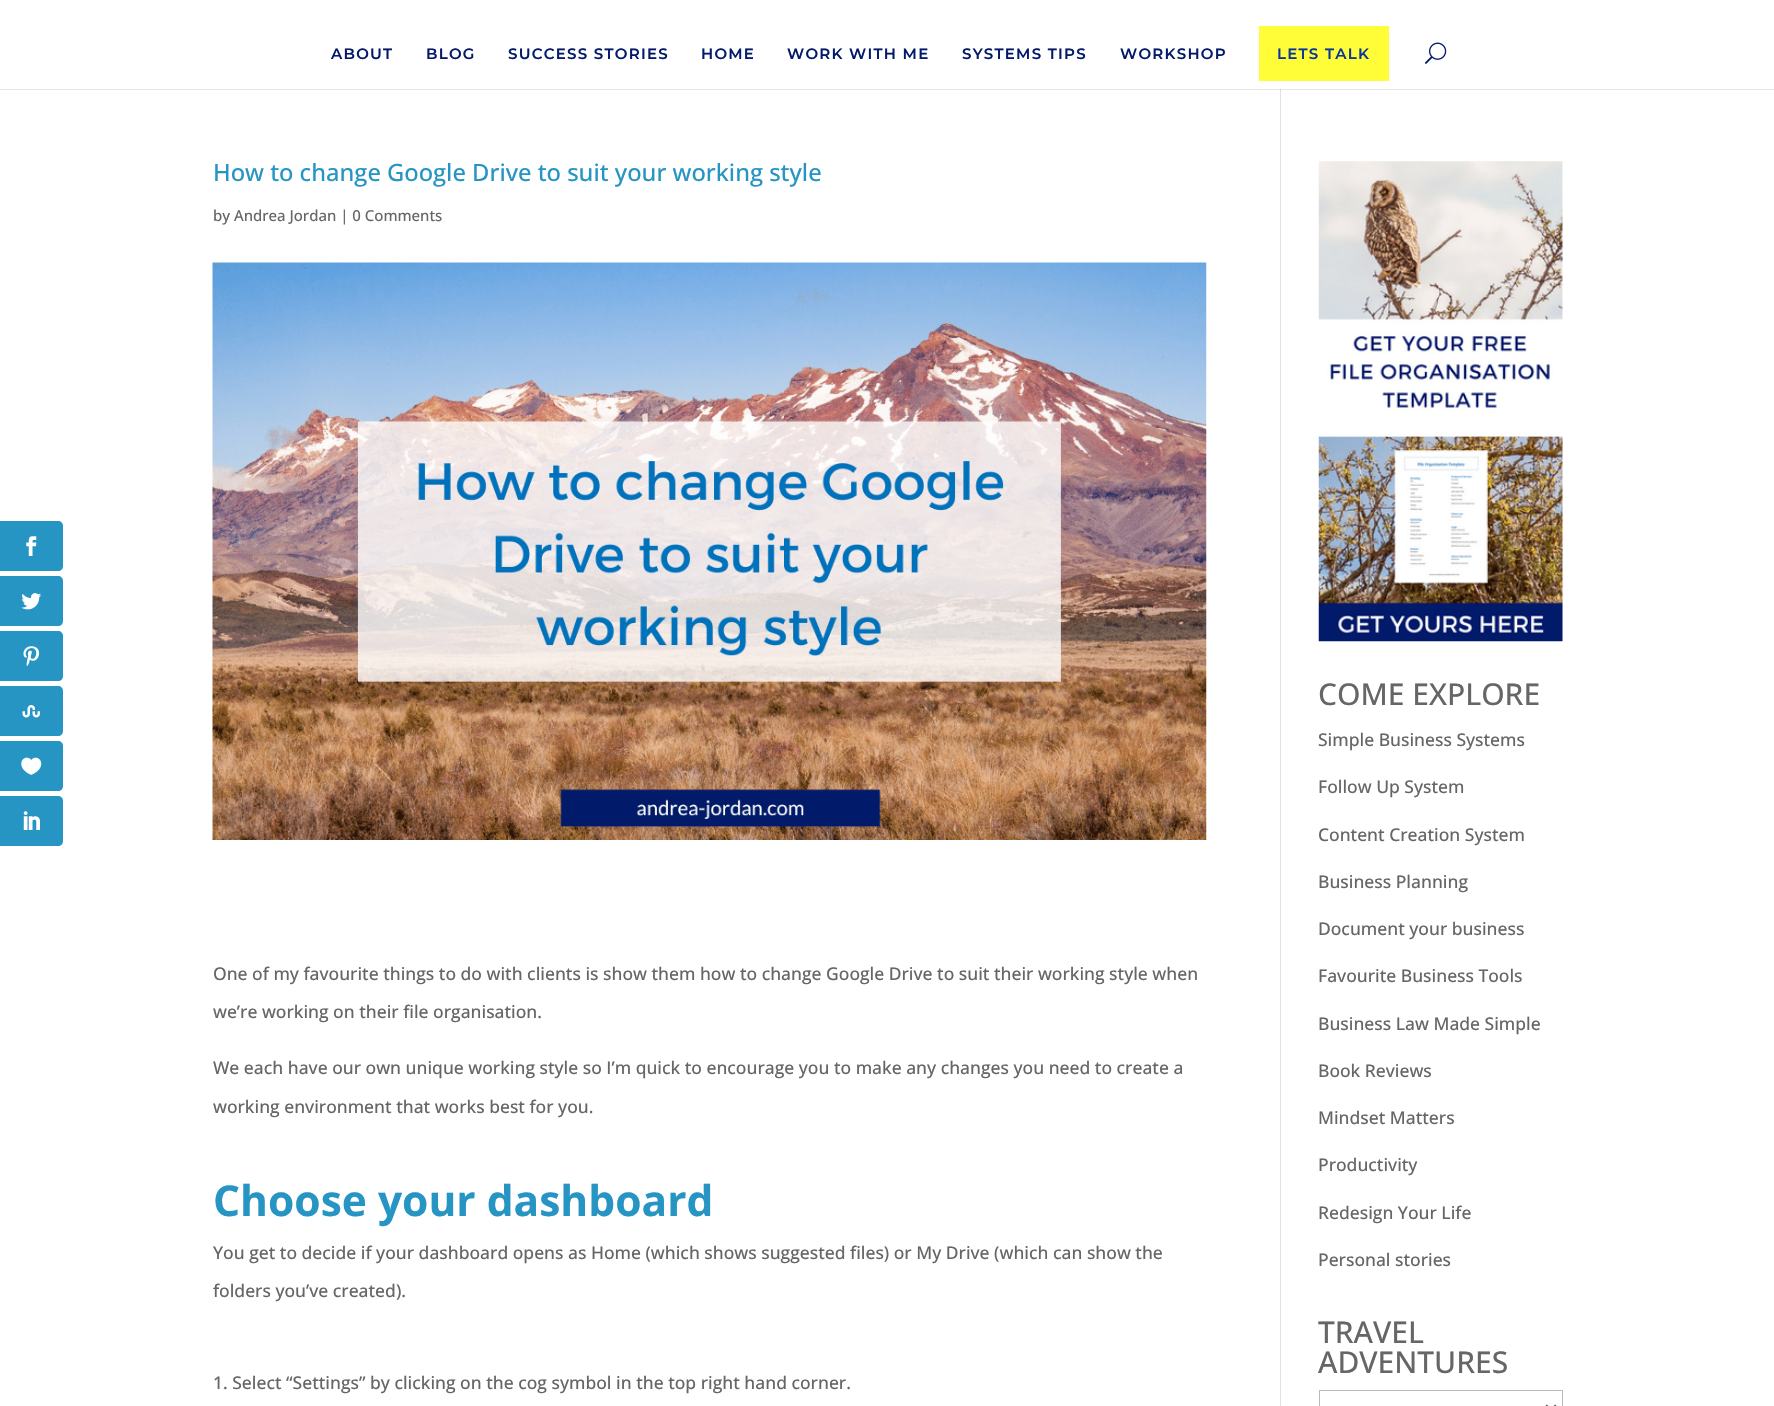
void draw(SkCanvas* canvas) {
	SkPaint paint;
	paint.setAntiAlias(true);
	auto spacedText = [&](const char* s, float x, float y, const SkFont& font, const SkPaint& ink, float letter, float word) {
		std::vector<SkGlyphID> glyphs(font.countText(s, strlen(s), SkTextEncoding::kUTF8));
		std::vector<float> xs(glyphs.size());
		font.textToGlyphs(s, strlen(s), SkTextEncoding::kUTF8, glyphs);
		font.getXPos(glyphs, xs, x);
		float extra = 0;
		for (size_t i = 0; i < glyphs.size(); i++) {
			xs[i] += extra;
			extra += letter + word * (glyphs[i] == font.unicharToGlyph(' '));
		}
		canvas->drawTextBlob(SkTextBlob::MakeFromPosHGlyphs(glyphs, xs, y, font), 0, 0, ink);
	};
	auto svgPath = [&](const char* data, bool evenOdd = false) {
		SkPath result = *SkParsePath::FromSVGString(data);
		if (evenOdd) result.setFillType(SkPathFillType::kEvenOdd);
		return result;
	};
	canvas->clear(0xffffffff);
	paint.setColor(0xffe6e6e6);
	canvas->drawRect(SkRect::MakeXYWH(0, 89, 1774, 1), paint);
	paint.setColor(0xff2795c4);
	canvas->drawPath(svgPath("M0 521H58C61 521 63 523 63 526V566C63 569 61 571 58 571H0Z"), paint);
	canvas->drawImageRect(SkImages::DeferredFromEncodedData(SkData::MakeFromFileName("img1.png")), SkRect::MakeXYWH(26, 536, 11, 20), SkSamplingOptions());
	canvas->drawPath(svgPath("M0 576H58C61 576 63 578 63 581V621C63 624 61 626 58 626H0Z"), paint);
	canvas->drawImageRect(SkImages::DeferredFromEncodedData(SkData::MakeFromFileName("img2.png")), SkRect::MakeXYWH(21, 593, 21, 17), SkSamplingOptions());
	canvas->drawPath(svgPath("M0 631H58C61 631 63 633 63 636V676C63 679 61 681 58 681H0Z"), paint);
	canvas->drawImageRect(SkImages::DeferredFromEncodedData(SkData::MakeFromFileName("img3.png")), SkRect::MakeXYWH(23, 646, 16, 20), SkSamplingOptions());
	canvas->drawPath(svgPath("M0 686H58C61 686 63 688 63 691V731C63 734 61 736 58 736H0Z"), paint);
	canvas->drawImageRect(SkImages::DeferredFromEncodedData(SkData::MakeFromFileName("img4.png")), SkRect::MakeXYWH(22, 705, 18, 13), SkSamplingOptions());
	canvas->drawPath(svgPath("M0 741H58C61 741 63 743 63 746V786C63 789 61 791 58 791H0Z"), paint);
	canvas->drawImageRect(SkImages::DeferredFromEncodedData(SkData::MakeFromFileName("img5.png")), SkRect::MakeXYWH(21, 757, 21, 18), SkSamplingOptions());
	canvas->drawPath(svgPath("M0 796H58C61 796 63 798 63 801V841C63 844 61 846 58 846H0Z"), paint);
	canvas->drawImageRect(SkImages::DeferredFromEncodedData(SkData::MakeFromFileName("img6.png")), SkRect::MakeXYWH(23, 811, 17, 19), SkSamplingOptions());
	SkFont f1(fontMgr->matchFamilyStyle("Montserrat", SkFontStyle(600, SkFontStyle::kNormal_Width, SkFontStyle::kUpright_Slant)), 15);
	f1.setSubpixel(true);
	paint.setColor(0xff031a6b);
	spacedText("ABOUT", 331, 59, f1, paint, 1.25, 0);
	spacedText("BLOG", 426, 59, f1, paint, 1.25, 0);
	spacedText("SUCCESS STORIES", 508, 59, f1, paint, 1.25, 0);
	spacedText("HOME", 701, 59, f1, paint, 1.25, 0);
	spacedText("WORK WITH ME", 787, 59, f1, paint, 1.25, 0);
	spacedText("SYSTEMS TIPS", 962, 59, f1, paint, 1.25, 0);
	spacedText("WORKSHOP", 1120, 59, f1, paint, 1.25, 0);
	paint.setColor(0xfffffd37);
	canvas->drawRect(SkRect::MakeXYWH(1259, 26, 130, 55), paint);
	paint.setColor(0xff0a369d);
	spacedText("LETS TALK", 1277, 59, f1, paint, 1.25, 0);
	canvas->drawImageRect(SkImages::DeferredFromEncodedData(SkData::MakeFromFileName("img7.png")), SkRect::MakeXYWH(1425, 42, 22, 22), SkSamplingOptions());
	paint.setColor(0xffe2e2e2);
	canvas->drawRect(SkRect::MakeXYWH(1280, 89, 1, 1317), paint);
	paint.setColor(0xffcbcbcb);
	canvas->drawRect(SkRect::MakeXYWH(1280, 89, 1, 1), paint);
	SkFont f2(fontMgr->matchFamilyStyle("Open Sans", SkFontStyle(500, SkFontStyle::kNormal_Width, SkFontStyle::kUpright_Slant)), 23.75);
	f2.setSubpixel(true);
	paint.setColor(0xff2795c4);
	canvas->drawString("How to change Google Drive to suit your working style", 213, 181, f2, paint);
	SkFont f3(fontMgr->matchFamilyStyle("Open Sans", SkFontStyle(500, SkFontStyle::kNormal_Width, SkFontStyle::kUpright_Slant)), 15);
	f3.setSubpixel(true);
	paint.setColor(0xff666666);
	canvas->drawString("by Andrea Jordan | 0 Comments", 213, 221, f3, paint);
	canvas->drawImageRect(SkImages::DeferredFromEncodedData(SkData::MakeFromFileName("img8.png")), SkRect::MakeXYWH(212, 262, 995, 578), SkSamplingOptions());
	SkFont f4(fontMgr->matchFamilyStyle("Open Sans", SkFontStyle(500, SkFontStyle::kNormal_Width, SkFontStyle::kUpright_Slant)), 17.5);
	f4.setSubpixel(true);
	canvas->drawString("One of my favourite things to do with clients is show them how to change Google Drive to suit their working style when", 213, 980, f4, paint);
	canvas->drawString("we’re working on their file organisation.", 213, 1018, f4, paint);
	canvas->drawString("We each have our own unique working style so I’m quick to encourage you to make any changes you need to create a", 213, 1074, f4, paint);
	canvas->drawString("working environment that works best for you.", 213, 1113, f4, paint);
	SkFont f5(fontMgr->matchFamilyStyle("Open Sans", SkFontStyle::Bold()), 42.5);
	f5.setSubpixel(true);
	paint.setColor(0xff2795c4);
	canvas->drawString("Choose your dashboard", 213, 1216, f5, paint);
	paint.setColor(0xff666666);
	canvas->drawString("You get to decide if your dashboard opens as Home (which shows suggested files) or My Drive (which can show the", 213, 1259, f4, paint);
	canvas->drawString("folders you’ve created).", 213, 1297, f4, paint);
	canvas->drawString("1. Select “Settings” by clicking on the cog symbol in the top right hand corner.", 213, 1389, f4, paint);
	canvas->drawImageRect(SkImages::DeferredFromEncodedData(SkData::MakeFromFileName("img9.png")), SkRect::MakeXYWH(1318, 161, 245, 481), SkSamplingOptions());
	SkFont f6(fontMgr->matchFamilyStyle("Open Sans", SkFontStyle(500, SkFontStyle::kNormal_Width, SkFontStyle::kUpright_Slant)), 30);
	f6.setSubpixel(true);
	canvas->drawString("COME EXPLORE", 1318, 705, f6, paint);
	canvas->drawString("Simple Business Systems", 1318, 746, f4, paint);
	canvas->drawString("Follow Up System", 1318, 793, f4, paint);
	canvas->drawString("Content Creation System", 1318, 841, f4, paint);
	canvas->drawString("Business Planning", 1318, 888, f4, paint);
	canvas->drawString("Document your business", 1318, 935, f4, paint);
	canvas->drawString("Favourite Business Tools", 1318, 982, f4, paint);
	canvas->drawString("Business Law Made Simple", 1318, 1030, f4, paint);
	canvas->drawString("Book Reviews", 1318, 1077, f4, paint);
	canvas->drawString("Mindset Matters", 1318, 1124, f4, paint);
	canvas->drawString("Productivity", 1318, 1171, f4, paint);
	canvas->drawString("Redesign Your Life", 1318, 1219, f4, paint);
	canvas->drawString("Personal stories", 1318, 1266, f4, paint);
	canvas->drawString("TRAVEL", 1318, 1343, f6, paint);
	canvas->drawString("ADVENTURES", 1318, 1373, f6, paint);
	paint.setStroke(true);
	paint.setStrokeWidth(1);
	paint.setColor(0xffbbbbbb);
	canvas->drawRect(SkRect::MakeXYWH(1319.5, 1390.5, 243, 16), paint);
	paint.setStrokeWidth(2.5);
	paint.setColor(0xff4e4e4e);
	canvas->drawPath(svgPath("M1546 1405.5L1551 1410.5L1556 1405.5"), paint);
}
